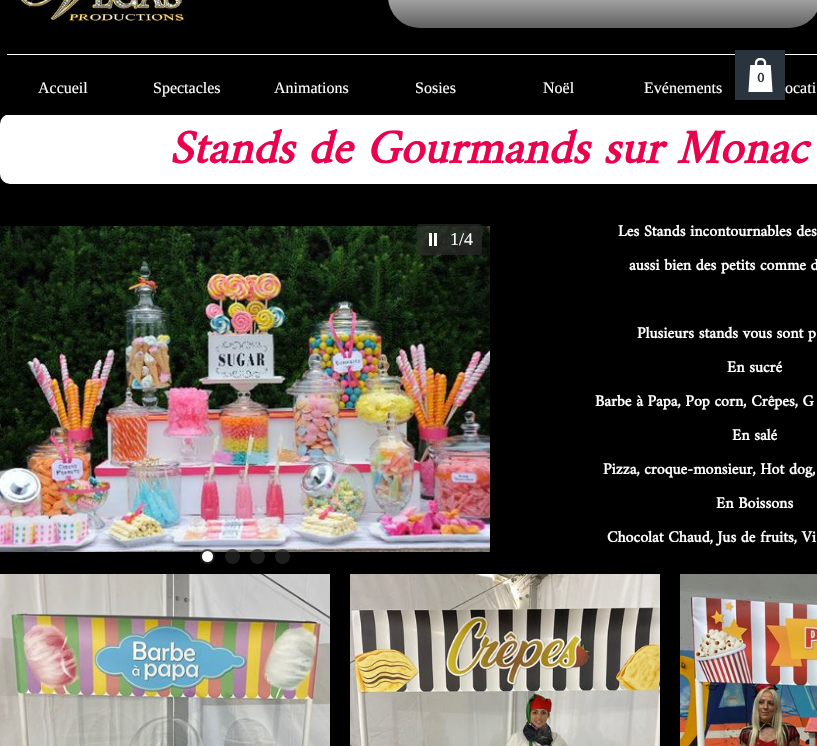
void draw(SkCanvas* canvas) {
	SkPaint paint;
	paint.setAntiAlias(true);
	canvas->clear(0xff000000);
	paint.setColor(0xffffffff);
	canvas->drawRect(SkRect::MakeXYWH(7, 54, 810, 1), paint);
	paint.setColor(0xff2a343f);
	canvas->drawRect(SkRect::MakeXYWH(735, 50, 50, 50), paint);
	canvas->drawImageRect(SkImages::DeferredFromEncodedData(SkData::MakeFromFileName("img1.png")), SkRect::MakeXYWH(748, 58, 25, 34), SkSamplingOptions());
	SkFont f1(fontMgr->matchFamilyStyle("Amiri", SkFontStyle::Bold()), 14);
	f1.setSubpixel(true);
	canvas->drawString("0", 757, 82, f1, paint);
	canvas->drawImageRect(SkImages::DeferredFromEncodedData(SkData::MakeFromFileName("img2.png")), SkRect::MakeXYWH(14, 0, 174, 31), SkSamplingOptions());
	{
		const SkColor colors[] = {0xffffffff, 0xff606060};
		const float stops[] = {0, 1};
		const SkPoint ends[] = {{605, -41}, {605, 28}};
		paint.setShader(SkGradientShader::MakeLinear(ends, colors, stops, 2, SkTileMode::kClamp));
		paint.setAlpha(255);
	}
	canvas->drawRoundRect(SkRect::MakeXYWH(388, -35, 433, 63), 34.5, 34.5, paint);
	paint.setShader(nullptr);
	paint.setColor(0xffffffff);
	canvas->drawRoundRect(SkRect::MakeXYWH(0, 114, 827, 70), 10, 10, paint);
	paint.setColor(0xff000000);
	canvas->drawRect(SkRect::MakeXYWH(5, 114, 812, 1), paint);
	SkFont f2(fontMgr->matchFamilyStyle("Liberation Serif", SkFontStyle::Normal()), 16);
	f2.setSubpixel(true);
	paint.setColor(0xffffffff);
	canvas->drawString("Accueil", 38, 93, f2, paint);
	canvas->drawString("Spectacles", 153, 93, f2, paint);
	canvas->drawString("Animations", 274, 93, f2, paint);
	canvas->drawString("Sosies", 415, 93, f2, paint);
	canvas->drawString("Noël", 543, 93, f2, paint);
	canvas->drawString("Evénements", 644, 93, f2, paint);
	canvas->drawString("ocati", 785, 93, f2, paint);
	SkFont f3(fontMgr->matchFamilyStyle("Amiri", SkFontStyle::BoldItalic()), 48);
	f3.setSubpixel(true);
	paint.setColor(0xffe9024e);
	canvas->drawString("Stands de Gourmands sur Monac", 169, 163, f3, paint);
	canvas->drawImageRect(SkImages::DeferredFromEncodedData(SkData::MakeFromFileName("img3.png")), SkRect::MakeXYWH(0, 226, 490, 326), SkSamplingOptions());
	paint.setColor(0xb3292929);
	canvas->drawRoundRect(SkRect::MakeXYWH(417, 224, 65, 31), 3, 3, paint);
	paint.setColor(0xffffffff);
	canvas->drawRect(SkRect::MakeXYWH(429, 233, 3, 13), paint);
	canvas->drawRect(SkRect::MakeXYWH(434, 233, 3, 13), paint);
	SkFont f4(fontMgr->matchFamilyStyle("Liberation Serif", SkFontStyle::Normal()), 18);
	f4.setSubpixel(true);
	canvas->drawString("1/4", 450, 245, f4, paint);
	paint.setColor(0xb3292929);
	canvas->drawCircle(207.5, 556.5, 7.5, paint);
	paint.setColor(0xffffffff);
	canvas->drawCircle(207.5, 556.5, 5.5, paint);
	paint.setColor(0xb3292929);
	canvas->drawCircle(232.5, 556.5, 7.5, paint);
	canvas->drawCircle(257.5, 556.5, 7.5, paint);
	canvas->drawCircle(282.5, 556.5, 7.5, paint);
	SkFont f5(fontMgr->matchFamilyStyle("Amiri", SkFontStyle::Bold()), 16);
	f5.setSubpixel(true);
	paint.setColor(0xffffffff);
	canvas->drawString("Les Stands incontournables des", 618, 236, f5, paint);
	canvas->drawString("aussi bien des petits comme d", 629, 270, f5, paint);
	canvas->drawString("Plusieurs stands vous sont p", 637, 338, f5, paint);
	canvas->drawString("En sucré", 727, 372, f5, paint);
	canvas->drawString("Barbe à Papa, Pop corn, Crêpes, G", 595, 406, f5, paint);
	canvas->drawString("En salé", 732, 440, f5, paint);
	canvas->drawString("Pizza, croque-monsieur, Hot dog,", 603, 474, f5, paint);
	canvas->drawString("En Boissons", 716, 508, f5, paint);
	canvas->drawString("Chocolat Chaud, Jus de fruits, Vi", 607, 542, f5, paint);
	canvas->drawImageRect(SkImages::DeferredFromEncodedData(SkData::MakeFromFileName("img4.png")), SkRect::MakeXYWH(0, 574, 330, 172), SkSamplingOptions());
	canvas->drawImageRect(SkImages::DeferredFromEncodedData(SkData::MakeFromFileName("img5.png")), SkRect::MakeXYWH(350, 574, 310, 172), SkSamplingOptions());
	canvas->drawImageRect(SkImages::DeferredFromEncodedData(SkData::MakeFromFileName("img6.png")), SkRect::MakeXYWH(680, 574, 137, 172), SkSamplingOptions());
}
